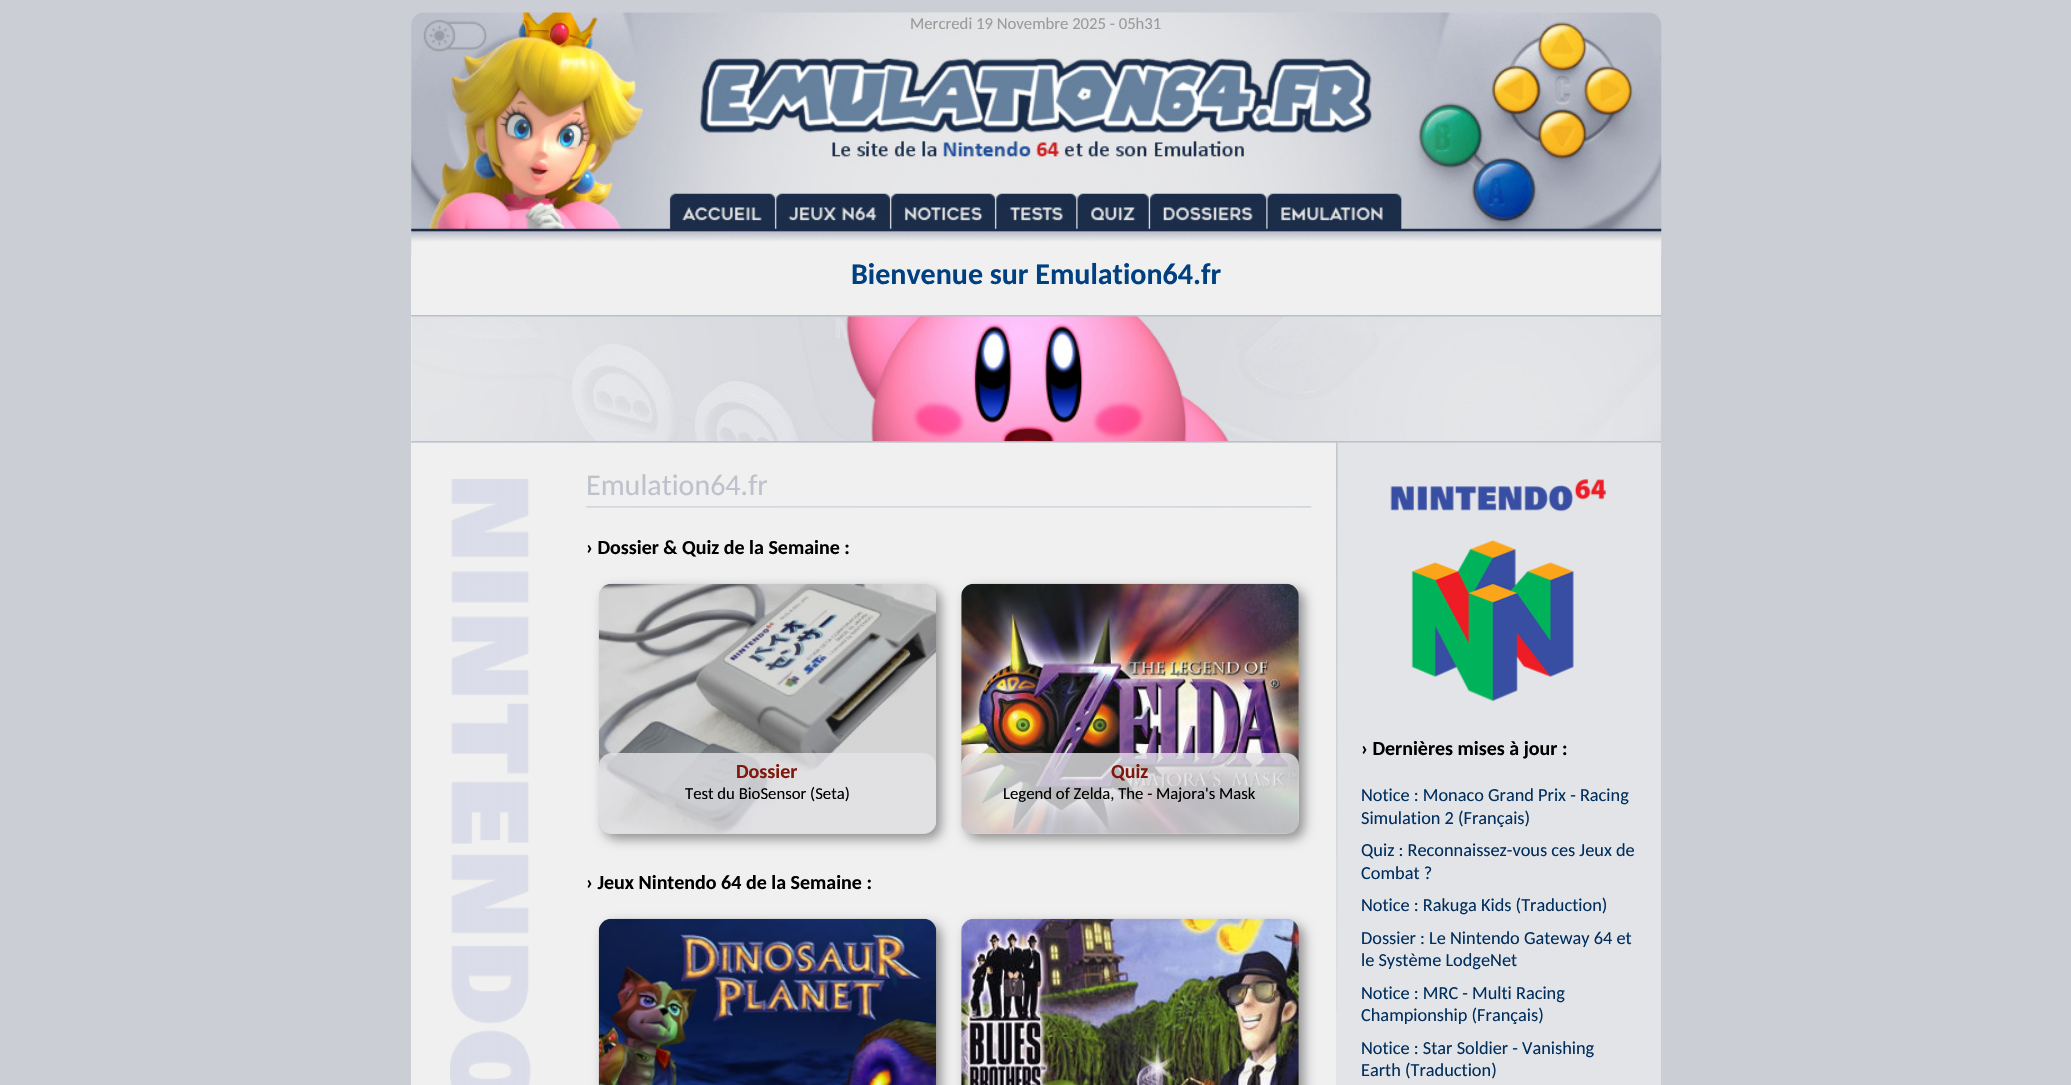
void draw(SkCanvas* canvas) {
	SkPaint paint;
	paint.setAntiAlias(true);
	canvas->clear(0xffccced5);
	canvas->drawImageRect(SkImages::DeferredFromEncodedData(SkData::MakeFromFileName("img2.png")), SkRect::MakeXYWH(411, 12, 1251, 243), SkSamplingOptions());
	canvas->drawImageRect(SkImages::DeferredFromEncodedData(SkData::MakeFromFileName("img1.png")), SkRect::MakeXYWH(423, 20, 64, 32), SkSamplingOptions());
	SkFont f1(fontMgr->matchFamilyStyle("Carlito", SkFontStyle::Normal()), 16.7);
	f1.setSubpixel(true);
	paint.setColor(0xff9b9b9b);
	canvas->drawString("Mercredi 19 Novembre 2025 - 05h31", 910, 29, f1, paint);
	paint.setColor(0xfff0f0f0);
	canvas->drawRect(SkRect::MakeXYWH(411, 255, 1250, 188), paint);
	SkFont f2(fontMgr->matchFamilyStyle("Carlito", SkFontStyle::Bold()), 30);
	f2.setSubpixel(true);
	paint.setColor(0xff004080);
	canvas->drawString("Bienvenue sur Emulation64.fr", 851, 284, f2, paint);
	paint.setColor(0xffe3e4e7);
	canvas->drawRect(SkRect::MakeXYWH(1336, 443, 325, 642), paint);
	canvas->drawImageRect(SkImages::DeferredFromEncodedData(SkData::MakeFromFileName("img7.png")), SkRect::MakeXYWH(1336, 442, 2, 570), SkSamplingOptions());
	canvas->drawImageRect(SkImages::DeferredFromEncodedData(SkData::MakeFromFileName("img3.png")), SkRect::MakeXYWH(411, 315, 1250, 128), SkSamplingOptions());
	canvas->drawImageRect(SkImages::DeferredFromEncodedData(SkData::MakeFromFileName("img4.png")), SkRect::MakeXYWH(411, 315, 1251, 2), SkSamplingOptions());
	canvas->drawImageRect(SkImages::DeferredFromEncodedData(SkData::MakeFromFileName("img5.png")), SkRect::MakeXYWH(411, 441, 1250, 2), SkSamplingOptions());
	paint.setColor(0xfff0f0f0);
	canvas->drawRect(SkRect::MakeXYWH(411, 443, 925, 642), paint);
	canvas->drawImageRect(SkImages::DeferredFromEncodedData(SkData::MakeFromFileName("img6.png")), SkRect::MakeXYWH(450, 479, 81, 606), SkSamplingOptions());
	SkFont f3(fontMgr->matchFamilyStyle("Carlito", SkFontStyle::Normal()), 30);
	f3.setSubpixel(true);
	paint.setColor(0xffbec2cc);
	canvas->drawString("Emulation64.fr", 586, 495, f3, paint);
	canvas->drawImageRect(SkImages::DeferredFromEncodedData(SkData::MakeFromFileName("img8.png")), SkRect::MakeXYWH(586, 506, 726, 2), SkSamplingOptions());
	SkFont f4(fontMgr->matchFamilyStyle("Carlito", SkFontStyle::Bold()), 20);
	f4.setSubpixel(true);
	paint.setColor(0xff000000);
	canvas->drawString("› Dossier & Quiz de la Semaine :", 586, 554, f4, paint);
	paint.setColor(0x66000000);
	paint.setMaskFilter(SkMaskFilter::MakeBlur(kNormal_SkBlurStyle, 6));
	canvas->drawRoundRect(SkRect::MakeXYWH(604, 589, 337, 250), 13, 13, paint);
	paint.setMaskFilter(nullptr);
	canvas->drawImageRect(SkImages::DeferredFromEncodedData(SkData::MakeFromFileName("img9.png")), SkRect::MakeXYWH(598, 583, 339, 251), SkSamplingOptions());
	paint.setMaskFilter(SkMaskFilter::MakeBlur(kNormal_SkBlurStyle, 6));
	canvas->drawRoundRect(SkRect::MakeXYWH(966, 589, 338, 250), 13, 13, paint);
	paint.setMaskFilter(nullptr);
	canvas->drawImageRect(SkImages::DeferredFromEncodedData(SkData::MakeFromFileName("img10.png")), SkRect::MakeXYWH(961, 583, 338, 251), SkSamplingOptions());
	paint.setColor(0xcce3e4e7);
	canvas->drawRoundRect(SkRect::MakeXYWH(599, 753, 337, 81), 13, 13, paint);
	paint.setColor(0xff80180d);
	canvas->drawString("Dossier", 736, 778, f4, paint);
	paint.setColor(0xff000000);
	canvas->drawString("Test du BioSensor (Seta)", 685, 799, f1, paint);
	paint.setColor(0xcce3e4e7);
	canvas->drawRoundRect(SkRect::MakeXYWH(961, 753, 338, 81), 13, 13, paint);
	paint.setColor(0xff80180d);
	canvas->drawString("Quiz", 1111, 778, f4, paint);
	paint.setColor(0xff000000);
	canvas->drawString("Legend of Zelda, The - Majora's Mask", 1003, 799, f1, paint);
	canvas->drawString("› Jeux Nintendo 64 de la Semaine :", 586, 889, f4, paint);
	paint.setColor(0x66000000);
	paint.setMaskFilter(SkMaskFilter::MakeBlur(kNormal_SkBlurStyle, 6));
	canvas->drawRoundRect(SkRect::MakeXYWH(604, 924, 337, 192), 13, 13, paint);
	paint.setMaskFilter(nullptr);
	canvas->drawImageRect(SkImages::DeferredFromEncodedData(SkData::MakeFromFileName("img11.png")), SkRect::MakeXYWH(598, 918, 339, 167), SkSamplingOptions());
	paint.setMaskFilter(SkMaskFilter::MakeBlur(kNormal_SkBlurStyle, 6));
	canvas->drawRoundRect(SkRect::MakeXYWH(966, 924, 338, 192), 13, 13, paint);
	paint.setMaskFilter(nullptr);
	canvas->drawImageRect(SkImages::DeferredFromEncodedData(SkData::MakeFromFileName("img12.png")), SkRect::MakeXYWH(961, 918, 338, 167), SkSamplingOptions());
	canvas->drawImageRect(SkImages::DeferredFromEncodedData(SkData::MakeFromFileName("img13.png")), SkRect::MakeXYWH(1390, 479, 217, 33), SkSamplingOptions());
	canvas->drawImageRect(SkImages::DeferredFromEncodedData(SkData::MakeFromFileName("img14.png")), SkRect::MakeXYWH(1411, 540, 163, 162), SkSamplingOptions());
	paint.setColor(0xff000000);
	canvas->drawString("› Dernières mises à jour :", 1361, 755, f4, paint);
	SkFont f5(fontMgr->matchFamilyStyle("Carlito", SkFontStyle::Normal()), 18.3);
	f5.setSubpixel(true);
	paint.setColor(0xff002f5e);
	canvas->drawString("Notice : Monaco Grand Prix - Racing", 1361, 801, f5, paint);
	canvas->drawString("Simulation 2 (Français)", 1361, 824, f5, paint);
	canvas->drawString("Quiz : Reconnaissez-vous ces Jeux de", 1361, 856, f5, paint);
	canvas->drawString("Combat ?", 1361, 879, f5, paint);
	canvas->drawString("Notice : Rakuga Kids (Traduction)", 1361, 911, f5, paint);
	canvas->drawString("Dossier : Le Nintendo Gateway 64 et", 1361, 944, f5, paint);
	canvas->drawString("le Système LodgeNet", 1361, 966, f5, paint);
	canvas->drawString("Notice : MRC - Multi Racing", 1361, 999, f5, paint);
	canvas->drawString("Championship (Français)", 1361, 1021, f5, paint);
	canvas->drawString("Notice : Star Soldier - Vanishing", 1361, 1054, f5, paint);
	canvas->drawString("Earth (Traduction)", 1361, 1076, f5, paint);
}
